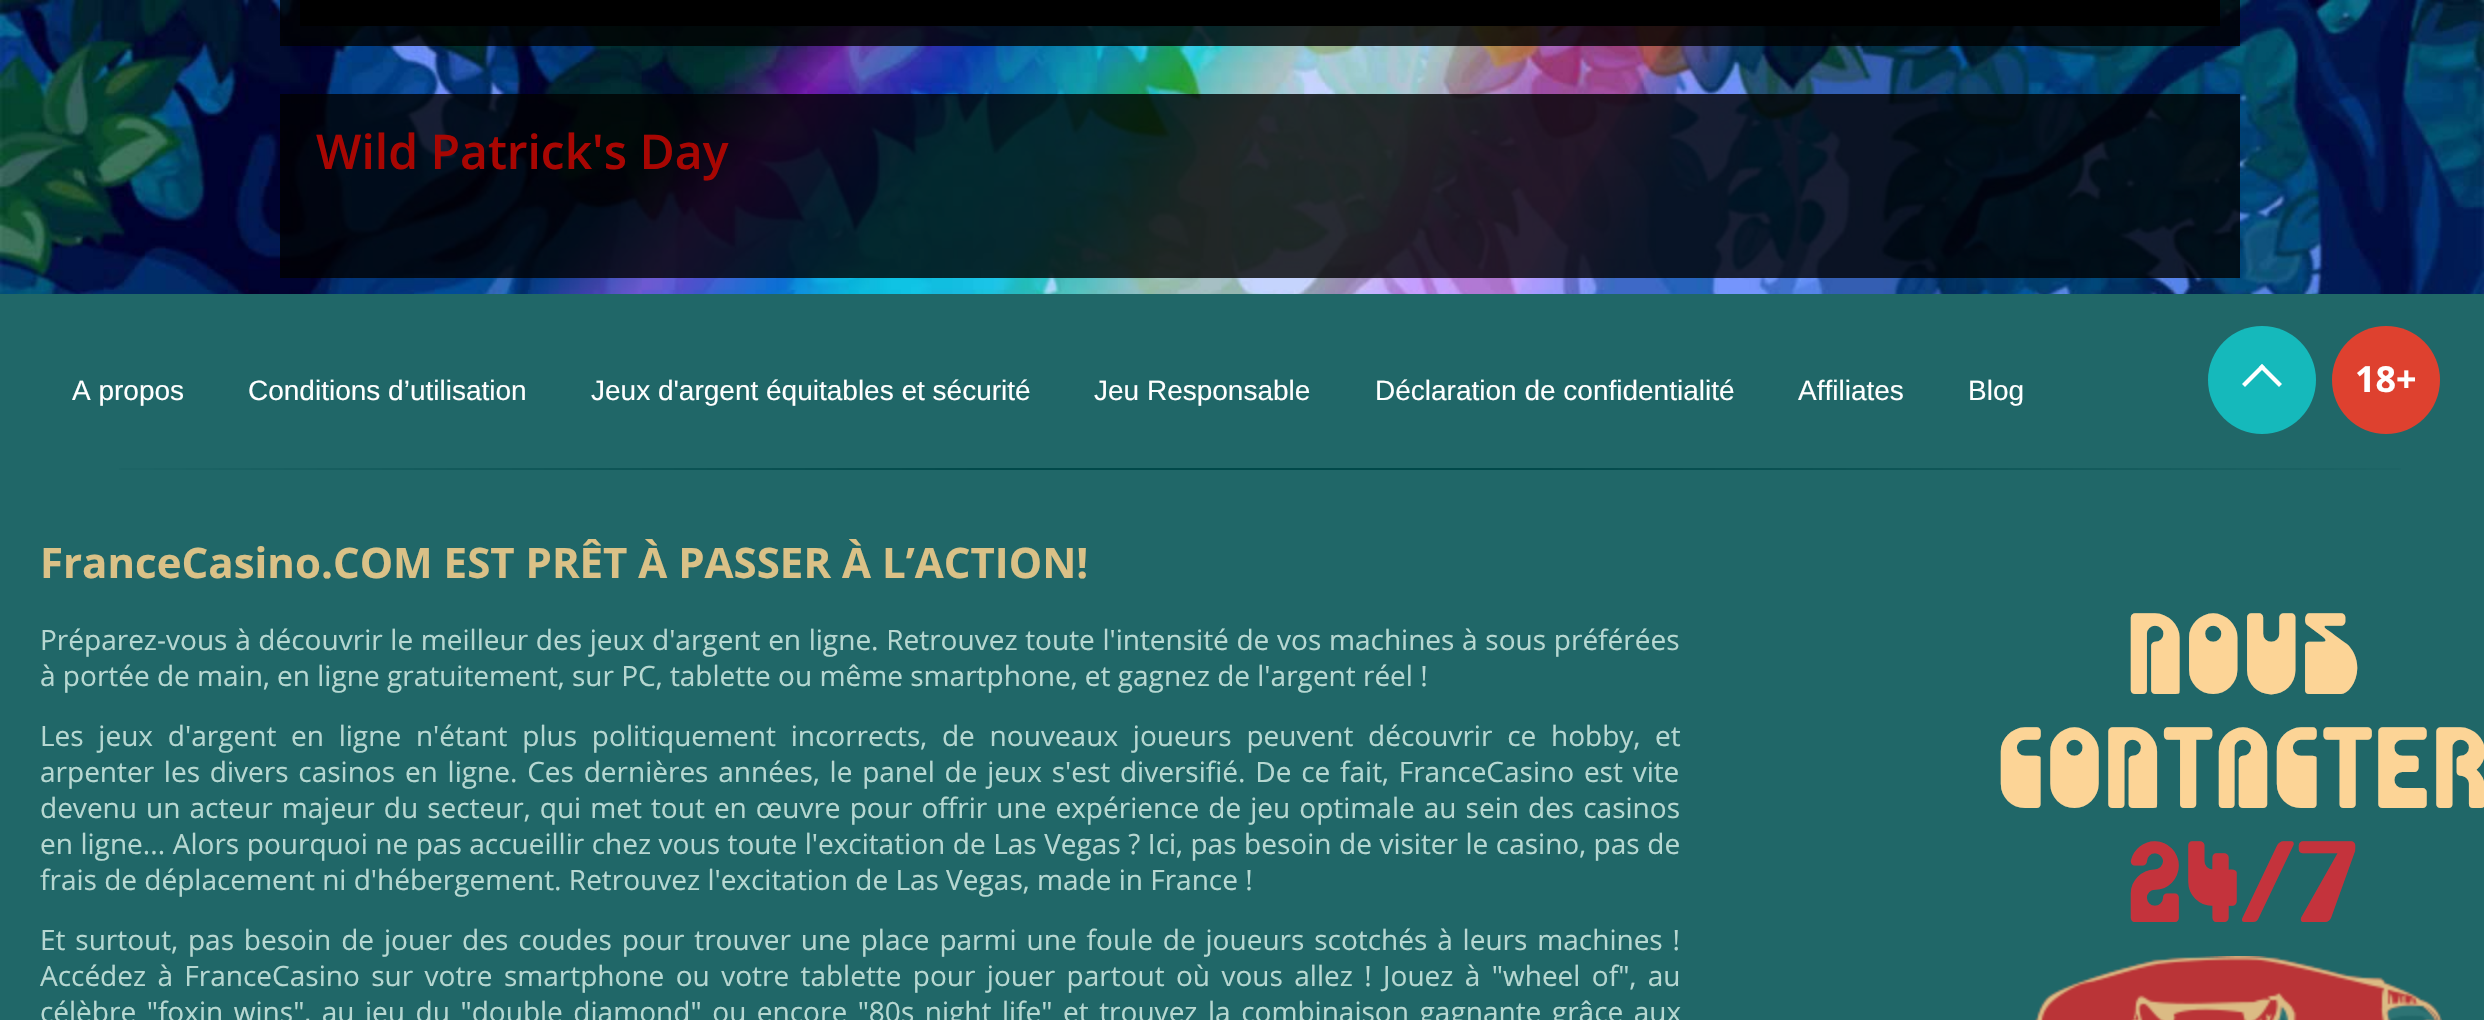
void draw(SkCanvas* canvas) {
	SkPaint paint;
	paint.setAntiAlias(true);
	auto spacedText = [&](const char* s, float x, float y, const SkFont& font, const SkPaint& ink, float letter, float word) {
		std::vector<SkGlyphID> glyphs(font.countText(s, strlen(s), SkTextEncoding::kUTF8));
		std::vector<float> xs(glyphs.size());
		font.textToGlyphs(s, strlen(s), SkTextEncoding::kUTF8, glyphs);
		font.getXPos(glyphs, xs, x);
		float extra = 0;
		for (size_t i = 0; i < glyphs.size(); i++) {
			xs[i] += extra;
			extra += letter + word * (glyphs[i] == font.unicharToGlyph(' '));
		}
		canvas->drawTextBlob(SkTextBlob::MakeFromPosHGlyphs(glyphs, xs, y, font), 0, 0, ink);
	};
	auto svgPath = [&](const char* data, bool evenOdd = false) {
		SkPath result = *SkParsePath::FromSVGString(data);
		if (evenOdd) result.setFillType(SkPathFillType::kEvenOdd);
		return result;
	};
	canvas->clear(0xffffffff);
	canvas->drawImageRect(SkImages::DeferredFromEncodedData(SkData::MakeFromFileName("img1.png")), SkRect::MakeXYWH(0, 0, 2484, 294), SkSamplingOptions());
	paint.setColor(0xcc000000);
	canvas->drawRect(SkRect::MakeXYWH(280, 0, 1960, 46), paint);
	paint.setColor(0xff000000);
	canvas->drawRect(SkRect::MakeXYWH(300, 0, 1920, 26), paint);
	paint.setColor(0xcc000000);
	canvas->drawRect(SkRect::MakeXYWH(280, 94, 1960, 184), paint);
	SkFont f1(fontMgr->matchFamilyStyle("Open Sans", SkFontStyle(600, SkFontStyle::kNormal_Width, SkFontStyle::kUpright_Slant)), 48);
	f1.setSubpixel(true);
	paint.setColor(0xffa80602);
	canvas->drawString("Wild Patrick's Day", 316, 169, f1, paint);
	paint.setColor(0xff206768);
	canvas->drawRect(SkRect::MakeXYWH(0, 294, 2484, 726), paint);
	SkFont f2(fontMgr->matchFamilyStyle("Liberation Sans", SkFontStyle::Normal()), 28);
	f2.setSubpixel(true);
	paint.setColor(0xffffffff);
	canvas->drawString("A propos", 72, 400, f2, paint);
	canvas->drawString("Conditions d’utilisation", 248, 400, f2, paint);
	canvas->drawString("Jeux d'argent équitables et sécurité", 591, 400, f2, paint);
	canvas->drawString("Jeu Responsable", 1094, 400, f2, paint);
	canvas->drawString("Déclaration de confidentialité", 1375, 400, f2, paint);
	canvas->drawString("Affiliates", 1798, 400, f2, paint);
	canvas->drawString("Blog", 1968, 400, f2, paint);
	{
		const SkColor colors[] = {0xff206768, 0xff01494a, 0xff01494a, 0xff206768};
		const float stops[] = {0, 0.4, 0.6, 1};
		const SkPoint ends[] = {{40, 469}, {2480, 469}};
		paint.setShader(SkGradientShader::MakeLinear(ends, colors, stops, 4, SkTileMode::kClamp));
		paint.setAlpha(255);
	}
	canvas->drawRect(SkRect::MakeXYWH(119, 468, 2282, 2), paint);
	paint.setShader(nullptr);
	paint.setColor(0xff15b9bb);
	canvas->drawCircle(2262, 380, 54, paint);
	paint.setColor(0xffffffff);
	canvas->drawPath(svgPath("M2245 387L2242 384L2262 364L2265 367Z"), paint);
	canvas->drawPath(svgPath("M2279 387L2259 367L2262 364L2282 384Z"), paint);
	paint.setColor(0xffde412f);
	canvas->drawCircle(2386, 380, 54, paint);
	SkFont f3(fontMgr->matchFamilyStyle("Open Sans", SkFontStyle::Bold()), 36);
	f3.setSubpixel(true);
	paint.setColor(0xffffffff);
	canvas->drawString("18+", 2355, 392, f3, paint);
	SkFont f4(fontMgr->matchFamilyStyle("Open Sans", SkFontStyle::Bold()), 42);
	f4.setSubpixel(true);
	paint.setColor(0xffdac187);
	canvas->drawString("FranceCasino.COM EST PRÊT À PASSER À L’ACTION!", 40, 578, f4, paint);
	SkFont f5(fontMgr->matchFamilyStyle("Open Sans", SkFontStyle::Normal()), 28);
	f5.setSubpixel(true);
	paint.setColor(0xffb6d7d1);
	spacedText("Préparez-vous à découvrir le meilleur des jeux d'argent en ligne. Retrouvez toute l'intensité de vos machines à sous préférées", 40, 650, f5, paint, 0, 0.4);
	canvas->drawString("à portée de main, en ligne gratuitement, sur PC, tablette ou même smartphone, et gagnez de l'argent réel !", 40, 686, f5, paint);
	spacedText("Les jeux d'argent en ligne n'étant plus politiquement incorrects, de nouveaux joueurs peuvent découvrir ce hobby, et", 40, 746, f5, paint, 0, 7.5);
	spacedText("arpenter les divers casinos en ligne. Ces dernières années, le panel de jeux s'est diversifié. De ce fait, FranceCasino est vite", 40, 782, f5, paint, 0, 2.5);
	spacedText("devenu un acteur majeur du secteur, qui met tout en œuvre pour offrir une expérience de jeu optimale au sein des casinos", 40, 818, f5, paint, 0, 1.8);
	spacedText("en ligne... Alors pourquoi ne pas accueillir chez vous toute l'excitation de Las Vegas ? Ici, pas besoin de visiter le casino, pas de", 40, 854, f5, paint, 0, 0.25);
	canvas->drawString("frais de déplacement ni d'hébergement. Retrouvez l'excitation de Las Vegas, made in France !", 40, 890, f5, paint);
	spacedText("Et surtout, pas besoin de jouer des coudes pour trouver une place parmi une foule de joueurs scotchés à leurs machines !", 40, 950, f5, paint, 0, 2.6);
	spacedText("Accédez à FranceCasino sur votre smartphone ou votre tablette pour jouer partout où vous allez ! Jouez à \"wheel of\", au", 40, 986, f5, paint, 0, 4.1);
	spacedText("célèbre \"foxin wins\", au jeu du \"double diamond\" ou encore \"80s night life\" et trouvez la combinaison gagnante grâce aux", 40, 1022, f5, paint, 0, 3.25);
	SkFont f6(fontMgr->matchFamilyStyle("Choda", SkFontStyle::Normal()), 96);
	f6.setSubpixel(true);
	paint.setColor(0xfffcd496);
	canvas->drawString("NOUS", 2126, 694, f6, paint);
	canvas->drawString("CONTACTER", 1996, 808, f6, paint);
	paint.setColor(0xffc4333c);
	canvas->drawString("24/7", 2126, 922, f6, paint);
	canvas->drawImageRect(SkImages::DeferredFromEncodedData(SkData::MakeFromFileName("img2.png")), SkRect::MakeXYWH(2035, 956, 407, 64), SkSamplingOptions());
}
